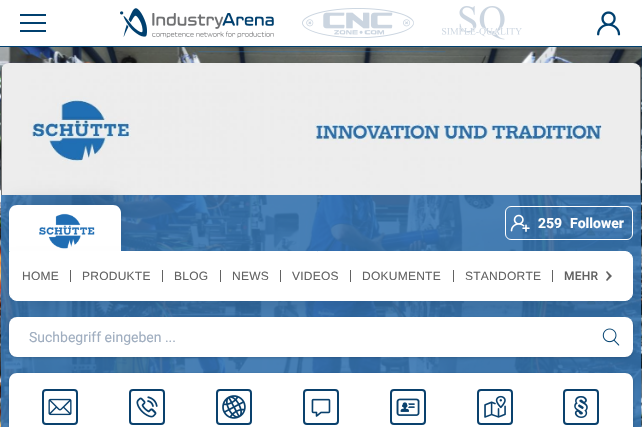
void draw(SkCanvas* canvas) {
	SkPaint paint;
	paint.setAntiAlias(true);
	auto spacedText = [&](const char* s, float x, float y, const SkFont& font, const SkPaint& ink, float letter, float word) {
		std::vector<SkGlyphID> glyphs(font.countText(s, strlen(s), SkTextEncoding::kUTF8));
		std::vector<float> xs(glyphs.size());
		font.textToGlyphs(s, strlen(s), SkTextEncoding::kUTF8, glyphs);
		font.getXPos(glyphs, xs, x);
		float extra = 0;
		for (size_t i = 0; i < glyphs.size(); i++) {
			xs[i] += extra;
			extra += letter + word * (glyphs[i] == font.unicharToGlyph(' '));
		}
		canvas->drawTextBlob(SkTextBlob::MakeFromPosHGlyphs(glyphs, xs, y, font), 0, 0, ink);
	};
	auto svgPath = [&](const char* data, bool evenOdd = false) {
		SkPath result = *SkParsePath::FromSVGString(data);
		if (evenOdd) result.setFillType(SkPathFillType::kEvenOdd);
		return result;
	};
	canvas->clear(0xff00406f);
	paint.setColor(0xffffffff);
	canvas->drawRect(SkRect::MakeXYWH(0, 0, 642, 46), paint);
	paint.setColor(0xff00406f);
	canvas->drawRect(SkRect::MakeXYWH(20, 14, 26, 2), paint);
	canvas->drawRect(SkRect::MakeXYWH(20, 22, 26, 2), paint);
	canvas->drawRect(SkRect::MakeXYWH(20, 30, 26, 2), paint);
	canvas->drawImageRect(SkImages::DeferredFromEncodedData(SkData::MakeFromFileName("img1.png")), SkRect::MakeXYWH(120, 8, 154, 30), SkSamplingOptions());
	canvas->drawImageRect(SkImages::DeferredFromEncodedData(SkData::MakeFromFileName("img2.png")), SkRect::MakeXYWH(302, 8, 112, 30), SkSamplingOptions());
	canvas->drawImageRect(SkImages::DeferredFromEncodedData(SkData::MakeFromFileName("img3.png")), SkRect::MakeXYWH(442, 6, 80, 34), SkSamplingOptions());
	canvas->drawImageRect(SkImages::DeferredFromEncodedData(SkData::MakeFromFileName("img4.png")), SkRect::MakeXYWH(597, 11, 24, 25), SkSamplingOptions());
	canvas->drawImageRect(SkImages::DeferredFromEncodedData(SkData::MakeFromFileName("img5.png")), SkRect::MakeXYWH(0, 47, 642, 380), SkSamplingOptions());
	canvas->drawImageRect(SkImages::DeferredFromEncodedData(SkData::MakeFromFileName("img6.png")), SkRect::MakeXYWH(1, 63, 640, 132), SkSamplingOptions());
	paint.setColor(0xde3272af);
	canvas->drawRect(SkRect::MakeXYWH(1, 195, 640, 232), paint);
	paint.setColor(0x1a000000);
	paint.setMaskFilter(SkMaskFilter::MakeBlur(kNormal_SkBlurStyle, 7.5));
	canvas->drawRoundRect(SkRect::MakeXYWH(12, 198, 106, 40), 5, 5, paint);
	paint.setMaskFilter(nullptr);
	paint.setColor(0xffffffff);
	canvas->drawPath(svgPath("M17 205H113C117.5 205 121 208.5 121 213V251H9V213C9 208.5 12.5 205 17 205Z"), paint);
	canvas->drawImageRect(SkImages::DeferredFromEncodedData(SkData::MakeFromFileName("img7.png")), SkRect::MakeXYWH(39, 213, 56, 36), SkSamplingOptions());
	paint.setStroke(true);
	paint.setStrokeWidth(1);
	canvas->drawRoundRect(SkRect::MakeXYWH(505.5, 206.5, 127, 33), 5.5, 5.5, paint);
	canvas->drawImageRect(SkImages::DeferredFromEncodedData(SkData::MakeFromFileName("img8.png")), SkRect::MakeXYWH(510, 214, 20, 18), SkSamplingOptions());
	SkFont f1(fontMgr->matchFamilyStyle("Roboto", SkFontStyle::Bold()), 14);
	f1.setSubpixel(true);
	paint.setStroke(false);
	canvas->drawString("259", 538, 228, f1, paint);
	canvas->drawString("Follower", 570, 228, f1, paint);
	paint.setColor(0x1a000000);
	paint.setMaskFilter(SkMaskFilter::MakeBlur(kNormal_SkBlurStyle, 7.5));
	canvas->drawRoundRect(SkRect::MakeXYWH(12, 264, 618, 44), 5, 5, paint);
	paint.setMaskFilter(nullptr);
	paint.setColor(0xffffffff);
	canvas->drawPath(svgPath("M9.5 251.5H625C629 251.5 632.5 255 632.5 259V293C632.5 297 629 300.5 625 300.5H17C13 300.5 9.5 297 9.5 293Z"), paint);
	paint.setStroke(true);
	canvas->drawPath(svgPath("M9.5 251.5H625C629 251.5 632.5 255 632.5 259V293C632.5 297 629 300.5 625 300.5H17C13 300.5 9.5 297 9.5 293Z"), paint);
	SkFont f2(fontMgr->matchFamilyStyle("Liberation Sans", SkFontStyle::Normal()), 12);
	f2.setSubpixel(true);
	paint.setStroke(false);
	paint.setColor(0xff626262);
	spacedText("HOME", 22, 280, f2, paint, 0.25, 0);
	canvas->drawRect(SkRect::MakeXYWH(70, 270, 1, 12), paint);
	spacedText("PRODUKTE", 82, 280, f2, paint, 0.25, 0);
	canvas->drawRect(SkRect::MakeXYWH(162, 270, 1, 12), paint);
	spacedText("BLOG", 174, 280, f2, paint, 0.25, 0);
	canvas->drawRect(SkRect::MakeXYWH(220, 270, 1, 12), paint);
	spacedText("NEWS", 232, 280, f2, paint, 0.25, 0);
	canvas->drawRect(SkRect::MakeXYWH(280, 270, 1, 12), paint);
	spacedText("VIDEOS", 292, 280, f2, paint, 0.25, 0);
	canvas->drawRect(SkRect::MakeXYWH(350, 270, 1, 12), paint);
	spacedText("DOKUMENTE", 362, 280, f2, paint, 0.25, 0);
	canvas->drawRect(SkRect::MakeXYWH(453, 270, 1, 12), paint);
	spacedText("STANDORTE", 465, 280, f2, paint, 0.25, 0);
	canvas->drawRect(SkRect::MakeXYWH(552, 270, 1, 12), paint);
	SkFont f3(fontMgr->matchFamilyStyle("Roboto", SkFontStyle(500, SkFontStyle::kNormal_Width, SkFontStyle::kUpright_Slant)), 12);
	f3.setSubpixel(true);
	spacedText("MEHR", 564, 280, f3, paint, 0.25, 0);
	canvas->save();
	canvas->clipRect(SkRect::MakeXYWH(603, 270, 12, 12));
	canvas->drawPath(svgPath("M308 95L305 97C307 102 307 102 303 99C298 102 298 102 300 97C296 94 295 94 301 94C303 89 302 89 304 94H308ZM307 95C303 95 304 96 303 92C301 96 302 95 298 95C302 97 301 96 300 100C303 98 302 98 305 100C304 96 304 97 307 95ZM612 276L607 281L606 280L609 276L606 272L607 271Z"), paint);
	canvas->restore();
	paint.setColor(0x0f000000);
	paint.setMaskFilter(SkMaskFilter::MakeBlur(kNormal_SkBlurStyle, 1));
	canvas->drawRoundRect(SkRect::MakeXYWH(9, 318, 624, 40), 8, 8, paint);
	paint.setMaskFilter(nullptr);
	paint.setColor(0x1a000000);
	paint.setMaskFilter(SkMaskFilter::MakeBlur(kNormal_SkBlurStyle, 1.5));
	canvas->drawRoundRect(SkRect::MakeXYWH(9, 318, 624, 40), 8, 8, paint);
	paint.setMaskFilter(nullptr);
	paint.setColor(0xffffffff);
	canvas->drawRoundRect(SkRect::MakeXYWH(9, 317, 624, 40), 8, 8, paint);
	SkFont f4(fontMgr->matchFamilyStyle("Roboto", SkFontStyle::Normal()), 14);
	f4.setSubpixel(true);
	paint.setColor(0xffa0aec0);
	canvas->drawString("Suchbegriff eingeben ...", 29, 342, f4, paint);
	canvas->drawImageRect(SkImages::DeferredFromEncodedData(SkData::MakeFromFileName("img9.png")), SkRect::MakeXYWH(602, 328, 18, 18), SkSamplingOptions());
	paint.setColor(0x1a000000);
	paint.setMaskFilter(SkMaskFilter::MakeBlur(kNormal_SkBlurStyle, 1.5));
	canvas->drawRoundRect(SkRect::MakeXYWH(9, 374, 624, 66), 8, 8, paint);
	paint.setMaskFilter(nullptr);
	paint.setMaskFilter(SkMaskFilter::MakeBlur(kNormal_SkBlurStyle, 1.5));
	canvas->drawRoundRect(SkRect::MakeXYWH(9, 374, 624, 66), 8, 8, paint);
	paint.setMaskFilter(nullptr);
	paint.setColor(0xffffffff);
	canvas->drawPath(svgPath("M17 373H625C629.5 373 633 376.5 633 381V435H9V381C9 376.5 12.5 373 17 373Z"), paint);
	paint.setStroke(true);
	paint.setStrokeWidth(2);
	paint.setColor(0xff0a416d);
	canvas->drawRoundRect(SkRect::MakeXYWH(43, 390, 34, 34), 3, 3, paint);
	canvas->drawImageRect(SkImages::DeferredFromEncodedData(SkData::MakeFromFileName("img10.png")), SkRect::MakeXYWH(48, 398, 24, 18), SkSamplingOptions());
	canvas->drawRoundRect(SkRect::MakeXYWH(130, 390, 34, 34), 3, 3, paint);
	canvas->drawImageRect(SkImages::DeferredFromEncodedData(SkData::MakeFromFileName("img11.png")), SkRect::MakeXYWH(136, 396, 22, 22), SkSamplingOptions());
	canvas->drawRoundRect(SkRect::MakeXYWH(217, 390, 34, 34), 3, 3, paint);
	canvas->drawImageRect(SkImages::DeferredFromEncodedData(SkData::MakeFromFileName("img12.png")), SkRect::MakeXYWH(222, 395, 24, 24), SkSamplingOptions());
	canvas->drawRoundRect(SkRect::MakeXYWH(304, 390, 34, 34), 3, 3, paint);
	canvas->drawImageRect(SkImages::DeferredFromEncodedData(SkData::MakeFromFileName("img13.png")), SkRect::MakeXYWH(311, 398, 20, 19), SkSamplingOptions());
	canvas->drawRoundRect(SkRect::MakeXYWH(391, 390, 34, 34), 3, 3, paint);
	canvas->drawImageRect(SkImages::DeferredFromEncodedData(SkData::MakeFromFileName("img14.png")), SkRect::MakeXYWH(396, 398, 24, 18), SkSamplingOptions());
	canvas->drawRoundRect(SkRect::MakeXYWH(478, 390, 34, 34), 3, 3, paint);
	canvas->drawImageRect(SkImages::DeferredFromEncodedData(SkData::MakeFromFileName("img15.png")), SkRect::MakeXYWH(484, 395, 22, 23), SkSamplingOptions());
	canvas->drawRoundRect(SkRect::MakeXYWH(564, 390, 34, 34), 3, 3, paint);
	canvas->drawImageRect(SkImages::DeferredFromEncodedData(SkData::MakeFromFileName("img16.png")), SkRect::MakeXYWH(574, 396, 14, 22), SkSamplingOptions());
}
